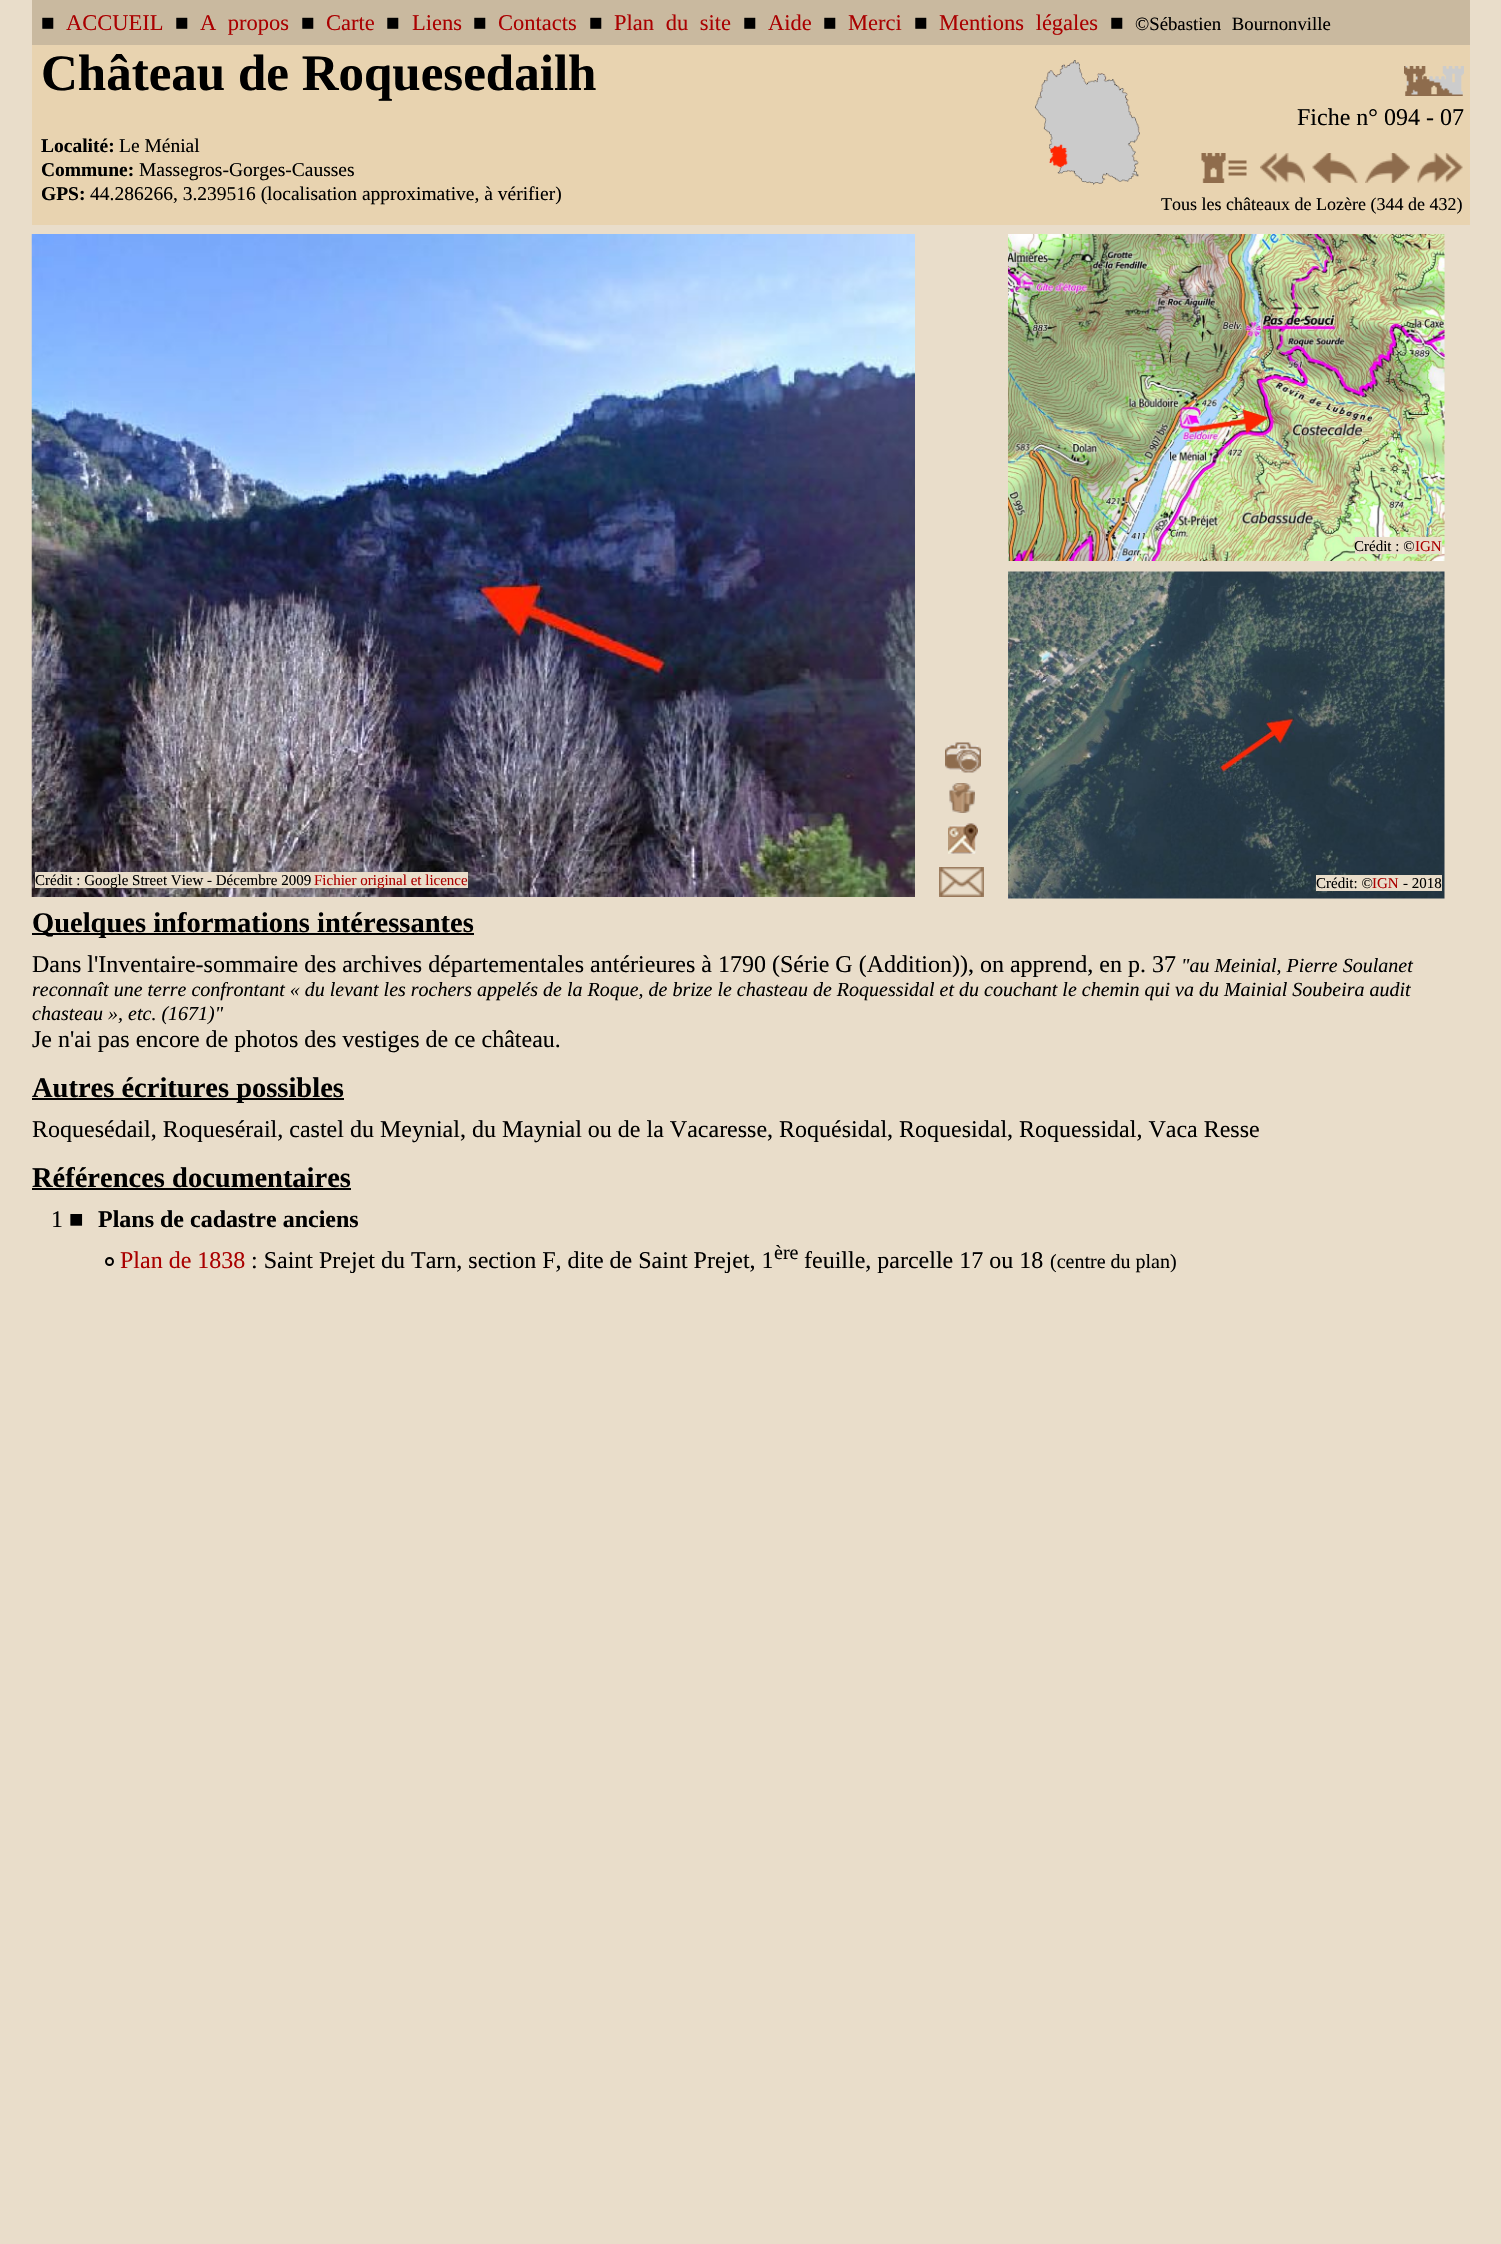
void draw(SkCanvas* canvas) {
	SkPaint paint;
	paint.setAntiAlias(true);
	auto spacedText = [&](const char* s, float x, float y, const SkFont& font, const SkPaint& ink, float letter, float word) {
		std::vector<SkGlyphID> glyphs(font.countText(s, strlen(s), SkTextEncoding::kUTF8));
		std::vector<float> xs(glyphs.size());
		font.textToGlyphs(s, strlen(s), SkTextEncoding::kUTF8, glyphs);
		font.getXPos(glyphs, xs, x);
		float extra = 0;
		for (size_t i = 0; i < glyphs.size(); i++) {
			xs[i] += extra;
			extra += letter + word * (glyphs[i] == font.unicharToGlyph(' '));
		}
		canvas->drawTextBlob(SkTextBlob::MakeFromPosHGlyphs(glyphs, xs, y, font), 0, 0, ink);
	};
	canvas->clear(0xffe9ddca);
	paint.setColor(0xffc9b99f);
	canvas->drawRect(SkRect::MakeXYWH(32, 0, 1438, 45), paint);
	SkFont f1(fontMgr->matchFamilyStyle("Liberation Serif", SkFontStyle::Normal()), 22.5);
	f1.setSubpixel(true);
	paint.setColor(0xff000000);
	canvas->drawString("■", 41, 30, f1, paint);
	paint.setColor(0xffaa0000);
	canvas->drawString("ACCUEIL", 66, 30, f1, paint);
	paint.setColor(0xff000000);
	canvas->drawString("■", 175, 30, f1, paint);
	paint.setColor(0xffaa0000);
	spacedText("A propos", 200, 30, f1, paint, 0, 6);
	paint.setColor(0xff000000);
	canvas->drawString("■", 301, 30, f1, paint);
	paint.setColor(0xffaa0000);
	canvas->drawString("Carte", 326, 30, f1, paint);
	paint.setColor(0xff000000);
	canvas->drawString("■", 386, 30, f1, paint);
	paint.setColor(0xffaa0000);
	canvas->drawString("Liens", 412, 30, f1, paint);
	paint.setColor(0xff000000);
	canvas->drawString("■", 473, 30, f1, paint);
	paint.setColor(0xffaa0000);
	canvas->drawString("Contacts", 498, 30, f1, paint);
	paint.setColor(0xff000000);
	canvas->drawString("■", 589, 30, f1, paint);
	paint.setColor(0xffaa0000);
	spacedText("Plan du site", 614, 30, f1, paint, 0, 6);
	paint.setColor(0xff000000);
	canvas->drawString("■", 743, 30, f1, paint);
	paint.setColor(0xffaa0000);
	canvas->drawString("Aide", 768, 30, f1, paint);
	paint.setColor(0xff000000);
	canvas->drawString("■", 823, 30, f1, paint);
	paint.setColor(0xffaa0000);
	canvas->drawString("Merci", 848, 30, f1, paint);
	paint.setColor(0xff000000);
	canvas->drawString("■", 914, 30, f1, paint);
	paint.setColor(0xffaa0000);
	spacedText("Mentions légales", 939, 30, f1, paint, 0, 6);
	paint.setColor(0xff000000);
	canvas->drawString("■", 1110, 30, f1, paint);
	SkFont f2(fontMgr->matchFamilyStyle("Liberation Serif", SkFontStyle::Normal()), 18.75);
	f2.setSubpixel(true);
	spacedText("©Sébastien Bournonville", 1135, 30, f2, paint, 0, 6);
	paint.setColor(0xffe8d3b0);
	canvas->drawRect(SkRect::MakeXYWH(32, 45, 1438, 180), paint);
	SkFont f3(fontMgr->matchFamilyStyle("Liberation Serif", SkFontStyle::Bold()), 51);
	f3.setSubpixel(true);
	paint.setColor(0xff000000);
	canvas->drawString("Château de Roquesedailh", 41, 90, f3, paint);
	canvas->drawImageRect(SkImages::DeferredFromEncodedData(SkData::MakeFromFileName("img1.png")), SkRect::MakeXYWH(1035, 60, 105, 125), SkSamplingOptions());
	canvas->drawImageRect(SkImages::DeferredFromEncodedData(SkData::MakeFromFileName("img2.png")), SkRect::MakeXYWH(1404, 66, 60, 30), SkSamplingOptions());
	canvas->drawImageRect(SkImages::DeferredFromEncodedData(SkData::MakeFromFileName("img3.png")), SkRect::MakeXYWH(1404, 66, 60, 30), SkSamplingOptions());
	SkFont f4(fontMgr->matchFamilyStyle("Liberation Serif", SkFontStyle::Normal()), 24);
	f4.setSubpixel(true);
	canvas->drawString("Fiche n° 094 - 07", 1297, 125, f4, paint);
	SkFont f5(fontMgr->matchFamilyStyle("Liberation Serif", SkFontStyle::Bold()), 19.5);
	f5.setSubpixel(true);
	canvas->drawString("Localité:", 41, 152, f5, paint);
	SkFont f6(fontMgr->matchFamilyStyle("Liberation Serif", SkFontStyle::Normal()), 19.5);
	f6.setSubpixel(true);
	canvas->drawString("Le Ménial", 119, 152, f6, paint);
	canvas->drawString("Commune:", 41, 176, f5, paint);
	canvas->drawString("Massegros-Gorges-Causses", 139, 176, f6, paint);
	canvas->drawString("GPS:", 41, 200, f5, paint);
	canvas->drawString("44.286266, 3.239516 (localisation approximative, à vérifier)", 90, 200, f6, paint);
	canvas->drawImageRect(SkImages::DeferredFromEncodedData(SkData::MakeFromFileName("img4.png")), SkRect::MakeXYWH(1201, 153, 46, 30), SkSamplingOptions());
	canvas->drawImageRect(SkImages::DeferredFromEncodedData(SkData::MakeFromFileName("img5.png")), SkRect::MakeXYWH(1260, 153, 45, 30), SkSamplingOptions());
	canvas->drawImageRect(SkImages::DeferredFromEncodedData(SkData::MakeFromFileName("img6.png")), SkRect::MakeXYWH(1312, 153, 46, 30), SkSamplingOptions());
	canvas->drawImageRect(SkImages::DeferredFromEncodedData(SkData::MakeFromFileName("img7.png")), SkRect::MakeXYWH(1365, 153, 45, 30), SkSamplingOptions());
	canvas->drawImageRect(SkImages::DeferredFromEncodedData(SkData::MakeFromFileName("img8.png")), SkRect::MakeXYWH(1417, 153, 46, 30), SkSamplingOptions());
	SkFont f7(fontMgr->matchFamilyStyle("Liberation Serif", SkFontStyle::Normal()), 18);
	f7.setSubpixel(true);
	canvas->drawString("Tous les châteaux de Lozère (344 de 432)", 1161, 210, f7, paint);
	canvas->drawImageRect(SkImages::DeferredFromEncodedData(SkData::MakeFromFileName("img9.png")), SkRect::MakeXYWH(1008, 234, 437, 327), SkSamplingOptions());
	paint.setColor(0xffe9ddca);
	canvas->drawRect(SkRect::MakeXYWH(1355, 537, 87, 17), paint);
	SkFont f8(fontMgr->matchFamilyStyle("Liberation Serif", SkFontStyle::Normal()), 15);
	f8.setSubpixel(true);
	paint.setColor(0xff000000);
	canvas->drawString("Crédit : ©", 1354, 551, f8, paint);
	paint.setColor(0xffaa0000);
	canvas->drawString("IGN", 1415, 551, f8, paint);
	canvas->drawImageRect(SkImages::DeferredFromEncodedData(SkData::MakeFromFileName("img10.png")), SkRect::MakeXYWH(945, 742, 36, 31), SkSamplingOptions());
	canvas->drawImageRect(SkImages::DeferredFromEncodedData(SkData::MakeFromFileName("img11.png")), SkRect::MakeXYWH(1008, 571, 437, 328), SkSamplingOptions());
	canvas->drawImageRect(SkImages::DeferredFromEncodedData(SkData::MakeFromFileName("img12.png")), SkRect::MakeXYWH(945, 742, 36, 31), SkSamplingOptions());
	canvas->drawImageRect(SkImages::DeferredFromEncodedData(SkData::MakeFromFileName("img13.png")), SkRect::MakeXYWH(949, 783, 26, 30), SkSamplingOptions());
	canvas->drawImageRect(SkImages::DeferredFromEncodedData(SkData::MakeFromFileName("img14.png")), SkRect::MakeXYWH(949, 783, 26, 30), SkSamplingOptions());
	canvas->drawImageRect(SkImages::DeferredFromEncodedData(SkData::MakeFromFileName("img15.png")), SkRect::MakeXYWH(948, 823, 30, 31), SkSamplingOptions());
	canvas->drawImageRect(SkImages::DeferredFromEncodedData(SkData::MakeFromFileName("img16.png")), SkRect::MakeXYWH(948, 823, 30, 31), SkSamplingOptions());
	canvas->drawImageRect(SkImages::DeferredFromEncodedData(SkData::MakeFromFileName("img17.png")), SkRect::MakeXYWH(31, 234, 884, 663), SkSamplingOptions());
	paint.setColor(0xffe9ddca);
	canvas->drawRect(SkRect::MakeXYWH(35, 872, 433, 16), paint);
	paint.setColor(0xff000000);
	canvas->drawString("Crédit : Google Street View - Décembre 2009", 35, 885, f8, paint);
	paint.setColor(0xffaa0000);
	canvas->drawString("Fichier original et licence", 314, 885, f8, paint);
	canvas->drawImageRect(SkImages::DeferredFromEncodedData(SkData::MakeFromFileName("img18.png")), SkRect::MakeXYWH(939, 867, 45, 30), SkSamplingOptions());
	paint.setColor(0xffe9ddca);
	canvas->drawRect(SkRect::MakeXYWH(1316, 875, 126, 16), paint);
	paint.setColor(0xff000000);
	canvas->drawString("Crédit: ©", 1316, 888, f8, paint);
	paint.setColor(0xffaa0000);
	canvas->drawString("IGN", 1372, 888, f8, paint);
	paint.setColor(0xff000000);
	canvas->drawString("- 2018", 1403, 888, f8, paint);
	canvas->drawRect(SkRect::MakeXYWH(32, 933, 442, 2), paint);
	SkFont f9(fontMgr->matchFamilyStyle("Liberation Serif", SkFontStyle::Bold()), 28.5);
	f9.setSubpixel(true);
	canvas->drawString("Quelques informations intéressantes", 32, 932, f9, paint);
	canvas->drawString("Dans l'Inventaire-sommaire des archives départementales antérieures à 1790 (Série G (Addition)), on apprend, en p. 37", 32, 972, f4, paint);
	SkFont f10(fontMgr->matchFamilyStyle("Liberation Serif", SkFontStyle::Italic()), 20);
	f10.setSubpixel(true);
	canvas->drawString("\"au Meinial, Pierre Soulanet", 1181, 972, f10, paint);
	canvas->drawString("reconnaît une terre confrontant « du levant les rochers appelés de la Roque, de brize le chasteau de Roquessidal et du couchant le chemin qui va du Mainial Soubeira audit", 32, 996, f10, paint);
	canvas->drawString("chasteau », etc. (1671)\"", 32, 1020, f10, paint);
	canvas->drawString("Je n'ai pas encore de photos des vestiges de ce château.", 32, 1047, f4, paint);
	canvas->drawRect(SkRect::MakeXYWH(32, 1098, 312, 2), paint);
	canvas->drawString("Autres écritures possibles", 32, 1097, f9, paint);
	canvas->drawString("Roquesédail, Roquesérail, castel du Meynial, du Maynial ou de la Vacaresse, Roquésidal, Roquesidal, Roquessidal, Vaca Resse", 32, 1137, f4, paint);
	canvas->drawString("Références documentaires", 32, 1187, f9, paint);
	canvas->drawRect(SkRect::MakeXYWH(32, 1188, 319, 2), paint);
	canvas->drawString("1 ■", 51, 1227, f4, paint);
	SkFont f11(fontMgr->matchFamilyStyle("Liberation Serif", SkFontStyle::Bold()), 24);
	f11.setSubpixel(true);
	canvas->drawString("Plans de cadastre anciens", 98, 1227, f11, paint);
	paint.setStroke(true);
	paint.setStrokeWidth(2);
	canvas->drawCircle(109.5, 1261.5, 3.5, paint);
	paint.setStroke(false);
	paint.setColor(0xffaa0000);
	canvas->drawString("Plan de 1838", 120, 1268, f4, paint);
	paint.setColor(0xff000000);
	canvas->drawString(": Saint Prejet du Tarn, section F, dite de Saint Prejet, 1", 251, 1268, f4, paint);
	SkFont f12(fontMgr->matchFamilyStyle("Liberation Serif", SkFontStyle::Normal()), 20);
	f12.setSubpixel(true);
	canvas->drawString("ère", 774, 1259, f12, paint);
	canvas->drawString("feuille, parcelle 17 ou 18", 804, 1268, f4, paint);
	canvas->drawString("(centre du plan)", 1050, 1268, f12, paint);
}
